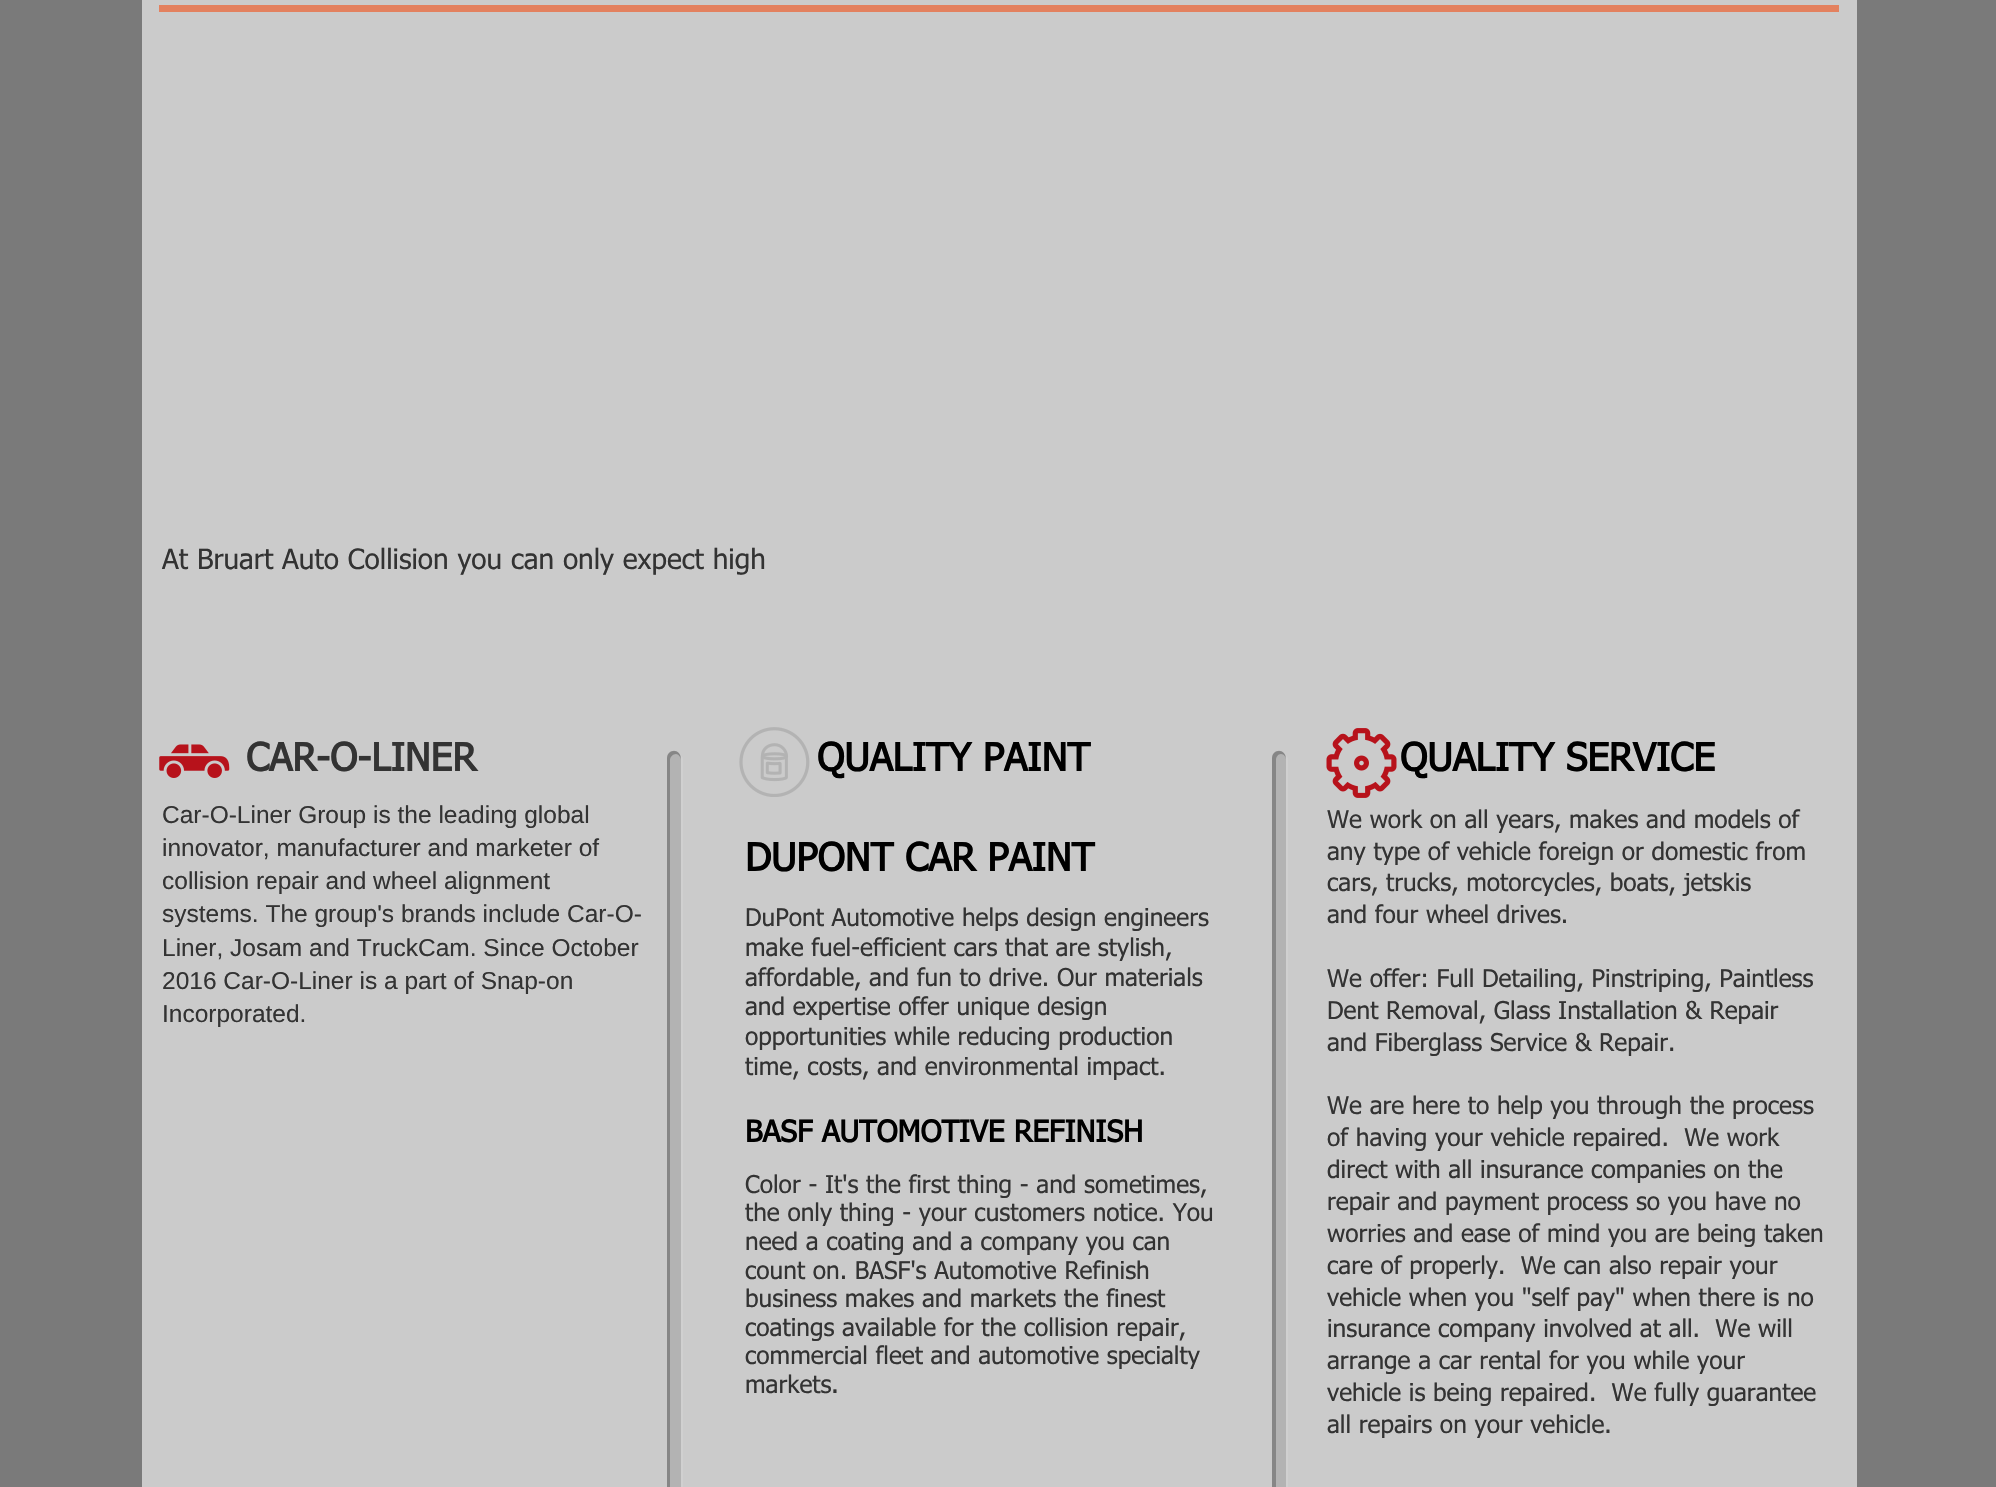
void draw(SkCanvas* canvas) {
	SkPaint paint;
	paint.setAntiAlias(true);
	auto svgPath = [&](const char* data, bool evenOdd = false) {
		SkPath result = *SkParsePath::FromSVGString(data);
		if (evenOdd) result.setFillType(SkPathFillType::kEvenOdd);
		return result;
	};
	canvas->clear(0xff7a7a7a);
	paint.setColor(0xffcbcbcb);
	canvas->drawRect(SkRect::MakeXYWH(142, 0, 1715, 1487), paint);
	paint.setColor(0xffe3815f);
	canvas->drawRect(SkRect::MakeXYWH(159, 5, 1680, 7), paint);
	SkFont f1(fontMgr->matchFamilyStyle("tahoma", SkFontStyle::Normal()), 28);
	f1.setSubpixel(true);
	paint.setColor(0xff333333);
	canvas->drawString("At Bruart Auto Collision you can only expect high", 162, 569, f1, paint);
	SkFont f2(fontMgr->matchFamilyStyle("tahoma", SkFontStyle::Bold()), 38.5);
	f2.setSubpixel(true);
	canvas->drawString("CAR-O-LINER", 246, 771, f2, paint);
	SkFont f3(fontMgr->matchFamilyStyle("Liberation Sans", SkFontStyle::Normal()), 24.5);
	f3.setSubpixel(true);
	canvas->drawString("Car-O-Liner Group is the leading global", 162, 823, f3, paint);
	canvas->drawString("innovator, manufacturer and marketer of", 162, 856, f3, paint);
	canvas->drawString("collision repair and wheel alignment", 162, 889, f3, paint);
	canvas->drawString("systems. The group's brands include Car-O-", 162, 922, f3, paint);
	canvas->drawString("Liner, Josam and TruckCam. Since October", 162, 956, f3, paint);
	canvas->drawString("2016 Car-O-Liner is a part of Snap-on", 162, 989, f3, paint);
	canvas->drawString("Incorporated.", 162, 1022, f3, paint);
	canvas->drawImageRect(SkImages::DeferredFromEncodedData(SkData::MakeFromFileName("img1.png")), SkRect::MakeXYWH(739, 727, 71, 70), SkSamplingOptions());
	canvas->drawImageRect(SkImages::DeferredFromEncodedData(SkData::MakeFromFileName("img2.png")), SkRect::MakeXYWH(1326, 728, 71, 70), SkSamplingOptions());
	canvas->drawImageRect(SkImages::DeferredFromEncodedData(SkData::MakeFromFileName("img3.png")), SkRect::MakeXYWH(159, 744, 71, 34), SkSamplingOptions());
	paint.setColor(0xffd0d0d0);
	canvas->drawPath(svgPath("M670 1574C673 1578 679 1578 682 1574L683 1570V759C683 757 681 755 680 754L681 758V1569C680 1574 674 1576 670 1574Z"), paint);
	paint.setColor(0xffb3b3b3);
	canvas->drawRoundRect(SkRect::MakeXYWH(667, 751, 14, 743), 7, 7, paint);
	paint.setColor(0x40000000);
	canvas->drawPath(svgPath("M676 754C678 754 681 757 681 760C681 747 667 749 667 758V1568C667 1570 668 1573 670 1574C672 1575 673 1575 675 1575C672 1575 670 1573 670 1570V760C670 757 673 754 676 754Z"), paint);
	paint.setColor(0xff000000);
	canvas->drawString("QUALITY PAINT", 817, 771, f2, paint);
	canvas->drawString("DUPONT CAR PAINT", 745, 871, f2, paint);
	SkFont f4(fontMgr->matchFamilyStyle("tahoma", SkFontStyle::Normal()), 24.5);
	f4.setSubpixel(true);
	paint.setColor(0xff333333);
	canvas->drawString("DuPont Automotive helps design engineers", 745, 926, f4, paint);
	canvas->drawString("make fuel-efficient cars that are stylish,", 745, 956, f4, paint);
	canvas->drawString("affordable, and fun to drive. Our materials", 745, 986, f4, paint);
	canvas->drawString("and expertise offer unique design", 745, 1015, f4, paint);
	canvas->drawString("opportunities while reducing production", 745, 1045, f4, paint);
	canvas->drawString("time, costs, and environmental impact.", 745, 1075, f4, paint);
	SkFont f5(fontMgr->matchFamilyStyle("tahoma", SkFontStyle::Bold()), 29.75);
	f5.setSubpixel(true);
	paint.setColor(0xff000000);
	canvas->drawString("BASF AUTOMOTIVE REFINISH", 745, 1142, f5, paint);
	paint.setColor(0xff333333);
	canvas->drawString("Color - It's the first thing - and sometimes,", 745, 1193, f4, paint);
	canvas->drawString("the only thing - your customers notice. You", 745, 1221, f4, paint);
	canvas->drawString("need a coating and a company you can", 745, 1250, f4, paint);
	canvas->drawString("count on. BASF's Automotive Refinish", 745, 1279, f4, paint);
	canvas->drawString("business makes and markets the finest", 745, 1307, f4, paint);
	canvas->drawString("coatings available for the collision repair,", 745, 1336, f4, paint);
	canvas->drawString("commercial fleet and automotive specialty", 745, 1364, f4, paint);
	canvas->drawString("markets", 745, 1393, f4, paint);
	SkFont f6(fontMgr->matchFamilyStyle("tahoma", SkFontStyle::Normal()), 26);
	f6.setSubpixel(true);
	canvas->drawString(".", 831, 1393, f6, paint);
	paint.setColor(0xffd0d0d0);
	canvas->drawPath(svgPath("M1275 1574C1278 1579 1288 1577 1288 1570V760C1288 758 1287 756 1286 755V758V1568V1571C1284 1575 1278 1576 1275 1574Z"), paint);
	paint.setColor(0xffb3b3b3);
	canvas->drawRoundRect(SkRect::MakeXYWH(1272, 751, 14, 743), 7, 7, paint);
	paint.setColor(0x40000000);
	canvas->drawPath(svgPath("M1281 754C1284 754 1286 757 1286 760C1286 747 1272 749 1272 758V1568L1273 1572L1274 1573C1276 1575 1278 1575 1280 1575C1278 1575 1276 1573 1276 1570V760C1276 757 1278 754 1281 754Z"), paint);
	paint.setColor(0xff000000);
	canvas->drawString("QUALITY SERVICE", 1400, 771, f2, paint);
	paint.setColor(0xff333333);
	canvas->drawString("We work on all years, makes and models of", 1327, 828, f4, paint);
	canvas->drawString("any type of vehicle foreign or domestic from", 1327, 860, f4, paint);
	canvas->drawString("cars, trucks, motorcycles, boats, jetskis", 1327, 891, f4, paint);
	canvas->drawString("and four wheel drives.", 1327, 923, f4, paint);
	canvas->drawString("We offer: Full Detailing, Pinstriping, Paintless", 1327, 987, f4, paint);
	canvas->drawString("Dent Removal, Glass Installation & Repair", 1327, 1019, f4, paint);
	canvas->drawString("and Fiberglass Service & Repair.", 1327, 1051, f4, paint);
	canvas->drawString("We are here to help you through the process", 1327, 1114, f4, paint);
	canvas->drawString("of having your vehicle repaired.  We work", 1327, 1146, f4, paint);
	canvas->drawString("direct with all insurance companies on the", 1327, 1178, f4, paint);
	canvas->drawString("repair and payment process so you have no", 1327, 1210, f4, paint);
	canvas->drawString("worries and ease of mind you are being taken", 1327, 1242, f4, paint);
	canvas->drawString("care of properly.  We can also repair your", 1327, 1274, f4, paint);
	canvas->drawString("vehicle when you \"self pay\" when there is no", 1327, 1306, f4, paint);
	canvas->drawString("insurance company involved at all.  We will", 1327, 1337, f4, paint);
	canvas->drawString("arrange a car rental for you while your", 1327, 1369, f4, paint);
	canvas->drawString("vehicle is being repaired.  We fully guarantee", 1327, 1401, f4, paint);
	canvas->drawString("all repairs on your vehicle.", 1327, 1433, f4, paint);
}
